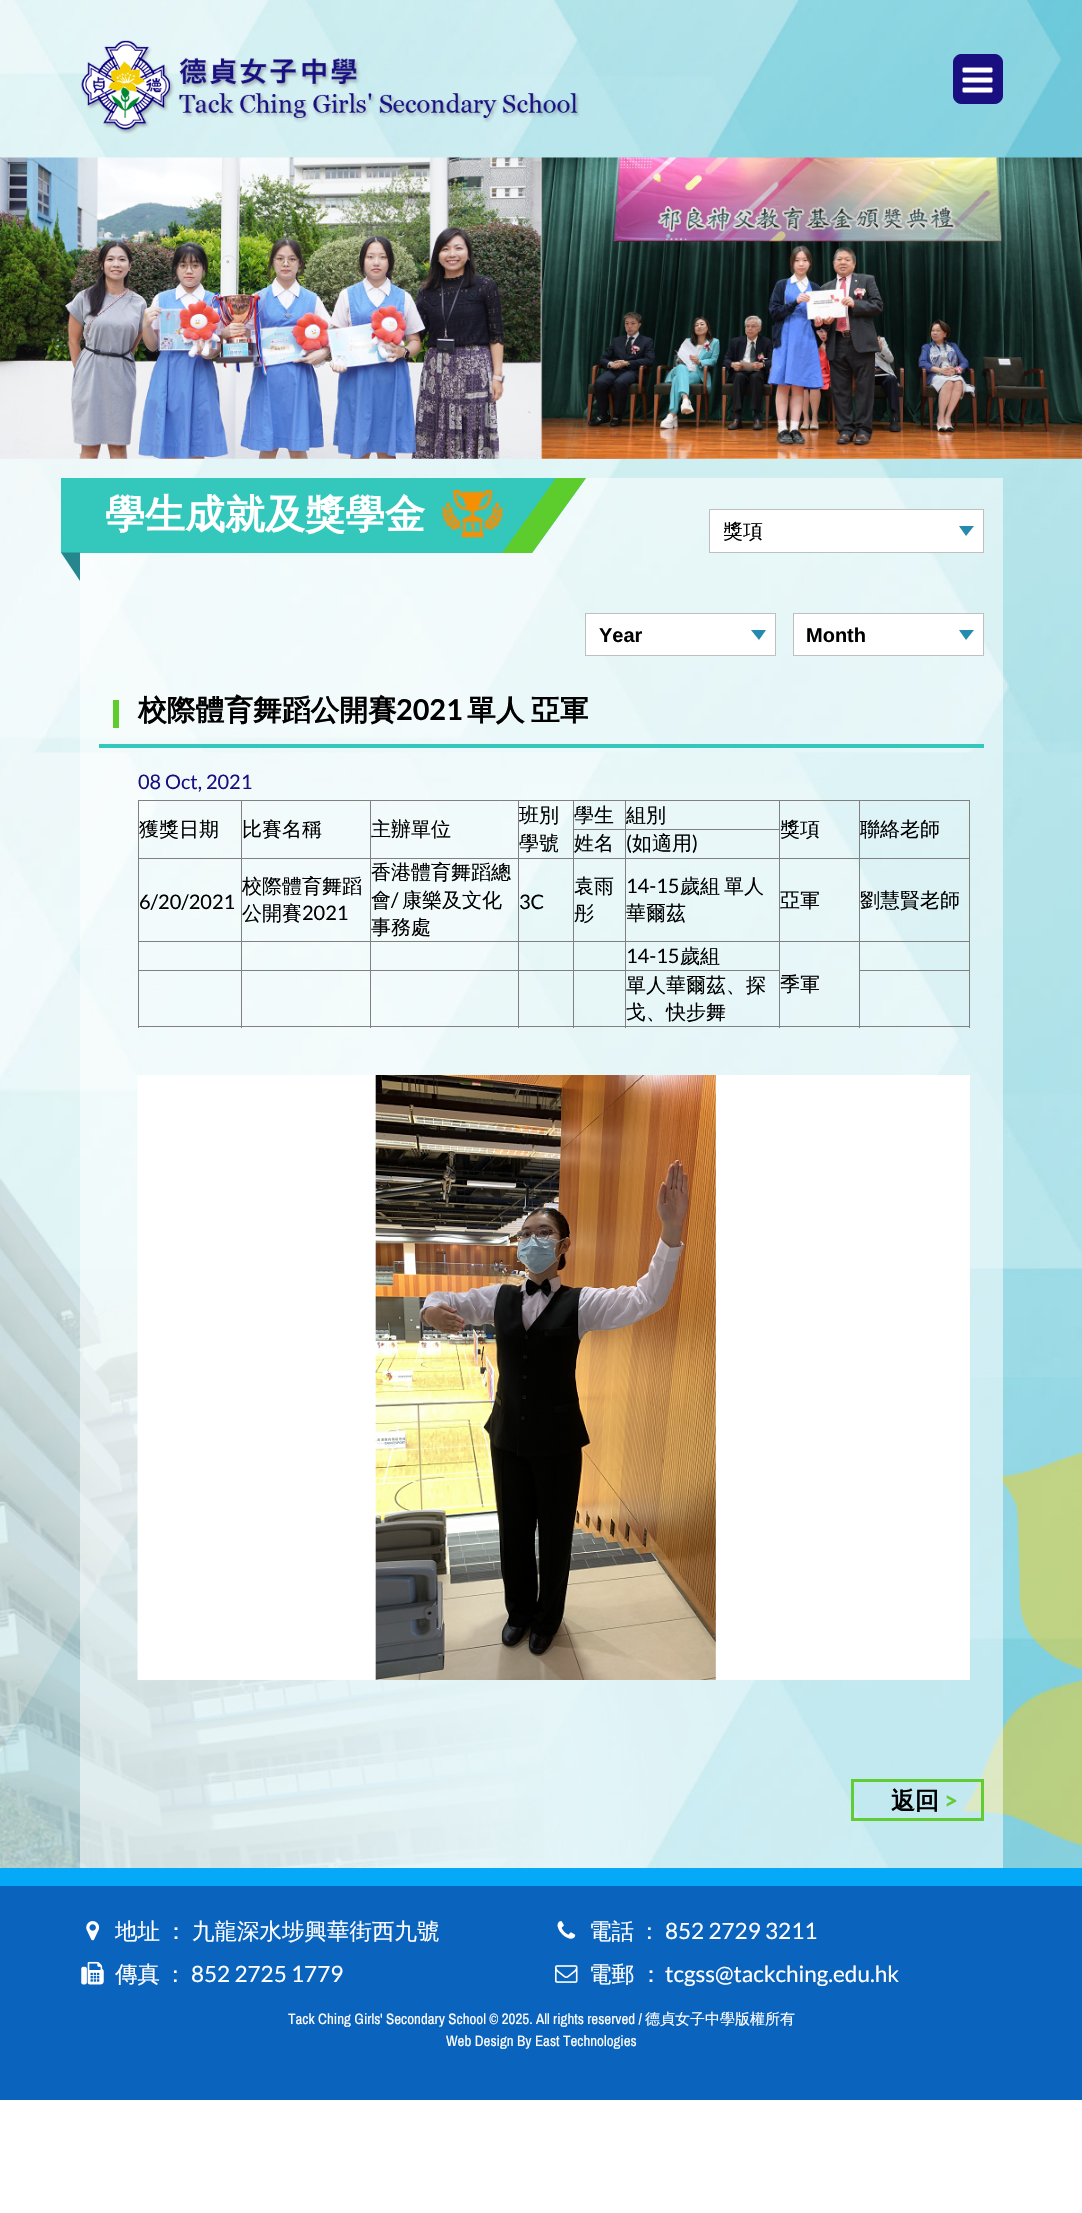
void draw(SkCanvas* canvas) {
	SkPaint paint;
	paint.setAntiAlias(true);
	auto spacedText = [&](const char* s, float x, float y, const SkFont& font, const SkPaint& ink, float letter, float word) {
		std::vector<SkGlyphID> glyphs(font.countText(s, strlen(s), SkTextEncoding::kUTF8));
		std::vector<float> xs(glyphs.size());
		font.textToGlyphs(s, strlen(s), SkTextEncoding::kUTF8, glyphs);
		font.getXPos(glyphs, xs, x);
		float extra = 0;
		for (size_t i = 0; i < glyphs.size(); i++) {
			xs[i] += extra;
			extra += letter + word * (glyphs[i] == font.unicharToGlyph(' '));
		}
		canvas->drawTextBlob(SkTextBlob::MakeFromPosHGlyphs(glyphs, xs, y, font), 0, 0, ink);
	};
	auto svgPath = [&](const char* data, bool evenOdd = false) {
		SkPath result = *SkParsePath::FromSVGString(data);
		if (evenOdd) result.setFillType(SkPathFillType::kEvenOdd);
		return result;
	};
	canvas->clear(0xffffffff);
	canvas->drawImageRect(SkImages::DeferredFromEncodedData(SkData::MakeFromFileName("img1.png")), SkRect::MakeXYWH(0, 0, 1082, 1868), SkSamplingOptions());
	canvas->drawImageRect(SkImages::DeferredFromEncodedData(SkData::MakeFromFileName("img2.png")), SkRect::MakeXYWH(81, 40, 499, 94), SkSamplingOptions());
	paint.setColor(0xff190f81);
	canvas->drawRoundRect(SkRect::MakeXYWH(953.5, 54.5, 49, 49), 7.5, 7.5, paint);
	paint.setStroke(true);
	paint.setStrokeWidth(1);
	canvas->drawRoundRect(SkRect::MakeXYWH(953.5, 54.5, 49, 49), 7.5, 7.5, paint);
	canvas->drawImageRect(SkImages::DeferredFromEncodedData(SkData::MakeFromFileName("img3.png")), SkRect::MakeXYWH(962, 67, 31, 26), SkSamplingOptions());
	canvas->drawImageRect(SkImages::DeferredFromEncodedData(SkData::MakeFromFileName("img4.png")), SkRect::MakeXYWH(0, 157, 1082, 302), SkSamplingOptions());
	paint.setStroke(false);
	paint.setColor(0x87ffffff);
	canvas->drawRect(SkRect::MakeXYWH(80, 478, 923, 1390), paint);
	paint.setColor(0xff34c7bc);
	canvas->drawRect(SkRect::MakeXYWH(61, 478, 425, 75), paint);
	SkFont f1(fontMgr->matchFamilyStyle("WenQuanYi Zen Hei", SkFontStyle::Bold()), 40);
	f1.setSubpixel(true);
	paint.setColor(0xffffffff);
	canvas->drawString("學生成就及獎學金", 105, 528, f1, paint);
	paint.setColor(0xff34c7bc);
	canvas->drawPath(svgPath("M486 478H586L532 553H432Z"), paint);
	paint.setColor(0xff5dcc2d);
	canvas->drawPath(svgPath("M556 478H586L532 553H502Z"), paint);
	canvas->drawImageRect(SkImages::DeferredFromEncodedData(SkData::MakeFromFileName("img5.png")), SkRect::MakeXYWH(442, 490, 61, 48), SkSamplingOptions());
	paint.setColor(0xff25868e);
	canvas->drawPath(svgPath("M80 552.5V581L61 552.5Z"), paint);
	paint.setColor(0xffffffff);
	canvas->drawRect(SkRect::MakeXYWH(710, 510, 273, 42), paint);
	paint.setColor(0xff258aae);
	canvas->drawPath(svgPath("M959 526H974L966 536Z"), paint);
	paint.setStroke(true);
	paint.setColor(0xffbdc0c1);
	canvas->drawRect(SkRect::MakeXYWH(709.5, 509.5, 274, 43), paint);
	SkFont f2(fontMgr->matchFamilyStyle("WenQuanYi Zen Hei", SkFontStyle(500, SkFontStyle::kNormal_Width, SkFontStyle::kUpright_Slant)), 20);
	f2.setSubpixel(true);
	paint.setStroke(false);
	paint.setColor(0xff000000);
	canvas->drawString("獎項", 723, 538, f2, paint);
	paint.setColor(0xffffffff);
	canvas->drawRect(SkRect::MakeXYWH(586, 614, 189, 41), paint);
	paint.setColor(0xff258aae);
	canvas->drawPath(svgPath("M751 630H766L759 640Z"), paint);
	paint.setStroke(true);
	paint.setColor(0xffbdc0c1);
	canvas->drawRect(SkRect::MakeXYWH(585.5, 613.5, 190, 42), paint);
	SkFont f3(fontMgr->matchFamilyStyle("Liberation Sans", SkFontStyle::Bold()), 20);
	f3.setSubpixel(true);
	paint.setStroke(false);
	paint.setColor(0xff000000);
	canvas->drawString("Year", 599, 642, f3, paint);
	paint.setColor(0xffffffff);
	canvas->drawRect(SkRect::MakeXYWH(794, 614, 189, 41), paint);
	paint.setColor(0xff258aae);
	canvas->drawPath(svgPath("M959 630H974L966 640Z"), paint);
	paint.setStroke(true);
	paint.setColor(0xffbdc0c1);
	canvas->drawRect(SkRect::MakeXYWH(793.5, 613.5, 190, 42), paint);
	paint.setStroke(false);
	paint.setColor(0xff000000);
	canvas->drawString("Month", 806, 642, f3, paint);
	paint.setColor(0xff34c7bc);
	canvas->drawRect(SkRect::MakeXYWH(99, 744, 885, 4), paint);
	paint.setColor(0xff5dcc2d);
	canvas->drawRect(SkRect::MakeXYWH(113, 700, 6, 28), paint);
	SkFont f4(fontMgr->matchFamilyStyle("WenQuanYi Zen Hei", SkFontStyle::Bold()), 28.75);
	f4.setSubpixel(true);
	paint.setColor(0xff000000);
	canvas->drawString("校際體育舞蹈公開賽", 138, 720, f4, paint);
	SkFont f5(fontMgr->matchFamilyStyle("Lato", SkFontStyle::Bold()), 28.75);
	f5.setSubpixel(true);
	canvas->drawString("2021", 396, 720, f5, paint);
	spacedText("單人 亞軍", 467, 720, f4, paint, 0, -2);
	SkFont f6(fontMgr->matchFamilyStyle("Lato", SkFontStyle::Normal()), 20);
	f6.setSubpixel(true);
	paint.setColor(0xff190f81);
	canvas->drawString("08 Oct, 2021", 138, 789, f6, paint);
	paint.setColor(0xff808080);
	canvas->drawRect(SkRect::MakeXYWH(138, 800, 832, 1), paint);
	canvas->drawRect(SkRect::MakeXYWH(969, 800, 1, 228), paint);
	canvas->drawRect(SkRect::MakeXYWH(138, 1026, 832, 1), paint);
	canvas->drawRect(SkRect::MakeXYWH(138, 800, 1, 228), paint);
	canvas->drawRect(SkRect::MakeXYWH(859, 858, 111, 1), paint);
	canvas->drawRect(SkRect::MakeXYWH(859, 941, 111, 1), paint);
	canvas->drawRect(SkRect::MakeXYWH(859, 970, 111, 1), paint);
	canvas->drawRect(SkRect::MakeXYWH(859, 970, 1, 58), paint);
	canvas->drawRect(SkRect::MakeXYWH(859, 941, 1, 30), paint);
	canvas->drawRect(SkRect::MakeXYWH(779, 941, 81, 1), paint);
	canvas->drawRect(SkRect::MakeXYWH(859, 858, 1, 85), paint);
	canvas->drawRect(SkRect::MakeXYWH(779, 858, 81, 1), paint);
	canvas->drawRect(SkRect::MakeXYWH(625, 970, 155, 1), paint);
	canvas->drawRect(SkRect::MakeXYWH(779, 941, 1, 87), paint);
	canvas->drawRect(SkRect::MakeXYWH(625, 941, 155, 1), paint);
	canvas->drawRect(SkRect::MakeXYWH(779, 858, 1, 85), paint);
	canvas->drawRect(SkRect::MakeXYWH(625, 858, 155, 1), paint);
	canvas->drawRect(SkRect::MakeXYWH(625, 970, 1, 58), paint);
	canvas->drawRect(SkRect::MakeXYWH(573, 970, 53, 1), paint);
	canvas->drawRect(SkRect::MakeXYWH(625, 941, 1, 30), paint);
	canvas->drawRect(SkRect::MakeXYWH(573, 941, 53, 1), paint);
	canvas->drawRect(SkRect::MakeXYWH(625, 858, 1, 85), paint);
	canvas->drawRect(SkRect::MakeXYWH(573, 858, 53, 1), paint);
	canvas->drawRect(SkRect::MakeXYWH(573, 970, 1, 58), paint);
	canvas->drawRect(SkRect::MakeXYWH(518, 970, 56, 1), paint);
	canvas->drawRect(SkRect::MakeXYWH(573, 941, 1, 30), paint);
	canvas->drawRect(SkRect::MakeXYWH(518, 941, 56, 1), paint);
	canvas->drawRect(SkRect::MakeXYWH(573, 858, 1, 85), paint);
	canvas->drawRect(SkRect::MakeXYWH(518, 858, 56, 1), paint);
	canvas->drawRect(SkRect::MakeXYWH(518, 970, 1, 58), paint);
	canvas->drawRect(SkRect::MakeXYWH(370, 970, 149, 1), paint);
	canvas->drawRect(SkRect::MakeXYWH(518, 941, 1, 30), paint);
	canvas->drawRect(SkRect::MakeXYWH(370, 941, 149, 1), paint);
	canvas->drawRect(SkRect::MakeXYWH(518, 858, 1, 85), paint);
	canvas->drawRect(SkRect::MakeXYWH(370, 858, 149, 1), paint);
	canvas->drawRect(SkRect::MakeXYWH(518, 800, 1, 59), paint);
	paint.setColor(0xff000000);
	canvas->drawString("班別", 519, 822, f2, paint);
	canvas->drawString("學號", 519, 850, f2, paint);
	canvas->drawString("學生", 574, 822, f2, paint);
	paint.setColor(0xff808080);
	canvas->drawRect(SkRect::MakeXYWH(625, 829, 155, 1), paint);
	canvas->drawRect(SkRect::MakeXYWH(625, 829, 1, 30), paint);
	canvas->drawRect(SkRect::MakeXYWH(573, 829, 53, 1), paint);
	canvas->drawRect(SkRect::MakeXYWH(625, 800, 1, 30), paint);
	paint.setColor(0xff000000);
	canvas->drawString("組別", 626, 822, f2, paint);
	canvas->drawString("獲獎日期", 139, 836, f2, paint);
	paint.setColor(0xff808080);
	canvas->drawRect(SkRect::MakeXYWH(370, 970, 1, 58), paint);
	canvas->drawRect(SkRect::MakeXYWH(241, 970, 130, 1), paint);
	canvas->drawRect(SkRect::MakeXYWH(370, 941, 1, 30), paint);
	canvas->drawRect(SkRect::MakeXYWH(241, 941, 130, 1), paint);
	canvas->drawRect(SkRect::MakeXYWH(370, 858, 1, 85), paint);
	canvas->drawRect(SkRect::MakeXYWH(241, 858, 130, 1), paint);
	canvas->drawRect(SkRect::MakeXYWH(241, 970, 1, 58), paint);
	canvas->drawRect(SkRect::MakeXYWH(138, 970, 105, 1), paint);
	canvas->drawRect(SkRect::MakeXYWH(241, 941, 1, 30), paint);
	canvas->drawRect(SkRect::MakeXYWH(138, 941, 105, 1), paint);
	canvas->drawRect(SkRect::MakeXYWH(241, 858, 1, 85), paint);
	canvas->drawRect(SkRect::MakeXYWH(138, 858, 105, 1), paint);
	canvas->drawRect(SkRect::MakeXYWH(241, 800, 1, 59), paint);
	paint.setColor(0xff000000);
	canvas->drawString("比賽名稱", 242, 836, f2, paint);
	paint.setColor(0xff808080);
	canvas->drawRect(SkRect::MakeXYWH(370, 800, 1, 59), paint);
	paint.setColor(0xff000000);
	canvas->drawString("主辦單位", 371, 836, f2, paint);
	paint.setColor(0xff808080);
	canvas->drawRect(SkRect::MakeXYWH(779, 800, 1, 59), paint);
	paint.setColor(0xff000000);
	canvas->drawString("獎項", 780, 836, f2, paint);
	paint.setColor(0xff808080);
	canvas->drawRect(SkRect::MakeXYWH(859, 800, 1, 59), paint);
	paint.setColor(0xff000000);
	canvas->drawString("聯絡老師", 860, 836, f2, paint);
	paint.setColor(0xff808080);
	canvas->drawRect(SkRect::MakeXYWH(573, 800, 1, 59), paint);
	paint.setColor(0xff000000);
	canvas->drawString("姓名", 574, 850, f2, paint);
	canvas->drawString("(", 626, 850, f6, paint);
	canvas->drawString("如適用", 632, 850, f2, paint);
	canvas->drawString(")", 692, 850, f6, paint);
	canvas->drawString("6/20/2021", 139, 909, f6, paint);
	canvas->drawString("校際體育舞蹈", 242, 893, f2, paint);
	canvas->drawString("公開賽", 242, 920, f2, paint);
	canvas->drawString("2021", 302, 920, f6, paint);
	canvas->drawString("香港體育舞蹈總", 371, 879, f2, paint);
	canvas->drawString("會", 371, 907, f2, paint);
	canvas->drawString("/", 391, 907, f6, paint);
	canvas->drawString("康樂及文化", 402, 907, f2, paint);
	canvas->drawString("事務處", 371, 934, f2, paint);
	canvas->drawString("3C", 519, 909, f6, paint);
	canvas->drawString("袁雨", 574, 893, f2, paint);
	canvas->drawString("彤", 574, 920, f2, paint);
	canvas->drawString("14-15", 626, 893, f6, paint);
	spacedText("歲組 單人", 680, 893, f2, paint, 0, -2);
	canvas->drawString("華爾茲", 626, 920, f2, paint);
	canvas->drawString("亞軍", 780, 907, f2, paint);
	canvas->drawString("劉慧賢老師", 860, 907, f2, paint);
	canvas->drawString("14-15", 626, 963, f6, paint);
	canvas->drawString("歲組", 680, 963, f2, paint);
	canvas->drawString("季軍", 780, 991, f2, paint);
	canvas->drawString("單人華爾茲、探", 626, 992, f2, paint);
	canvas->drawString("戈、快步舞", 626, 1019, f2, paint);
	canvas->drawImageRect(SkImages::DeferredFromEncodedData(SkData::MakeFromFileName("img6.png")), SkRect::MakeXYWH(137, 1075, 833, 605), SkSamplingOptions());
	paint.setStroke(true);
	paint.setStrokeWidth(3);
	paint.setColor(0xff61cd34);
	canvas->drawRect(SkRect::MakeXYWH(852.5, 1780.5, 130, 39), paint);
	SkFont f7(fontMgr->matchFamilyStyle("WenQuanYi Zen Hei", SkFontStyle::Bold()), 24);
	f7.setSubpixel(true);
	paint.setStroke(false);
	paint.setColor(0xff000000);
	canvas->drawString("返回", 891, 1809, f7, paint);
	SkFont f8(fontMgr->matchFamilyStyle("Lato", SkFontStyle::Bold()), 24);
	f8.setSubpixel(true);
	paint.setColor(0xff61cd34);
	canvas->drawString(">", 944, 1809, f8, paint);
	paint.setColor(0xff0a63bc);
	canvas->drawRect(SkRect::MakeXYWH(0, 1886, 1082, 214), paint);
	paint.setColor(0xff05a9f7);
	canvas->drawRect(SkRect::MakeXYWH(0, 1868, 1082, 18), paint);
	canvas->drawImageRect(SkImages::DeferredFromEncodedData(SkData::MakeFromFileName("img7.png")), SkRect::MakeXYWH(86, 1921, 14, 20), SkSamplingOptions());
	SkFont f9(fontMgr->matchFamilyStyle("WenQuanYi Zen Hei", SkFontStyle(500, SkFontStyle::kNormal_Width, SkFontStyle::kUpright_Slant)), 22.5);
	f9.setSubpixel(true);
	paint.setColor(0xffffffff);
	spacedText("地址 ： 九龍深水埗興華街西九號", 115, 1939, f9, paint, 0, -2);
	canvas->drawImageRect(SkImages::DeferredFromEncodedData(SkData::MakeFromFileName("img8.png")), SkRect::MakeXYWH(557, 1921, 19, 18), SkSamplingOptions());
	canvas->drawString("電話", 589, 1939, f9, paint);
	canvas->drawString("：", 638, 1939, f9, paint);
	SkFont f10(fontMgr->matchFamilyStyle("Lato", SkFontStyle::Normal()), 22.5);
	f10.setSubpixel(true);
	canvas->drawString("852 2729 3211", 665, 1939, f10, paint);
	canvas->drawImageRect(SkImages::DeferredFromEncodedData(SkData::MakeFromFileName("img9.png")), SkRect::MakeXYWH(81, 1961, 23, 24), SkSamplingOptions());
	canvas->drawString("傳真", 115, 1982, f9, paint);
	canvas->drawString("：", 164, 1982, f9, paint);
	canvas->drawString("852 2725 1779", 191, 1982, f10, paint);
	canvas->drawImageRect(SkImages::DeferredFromEncodedData(SkData::MakeFromFileName("img10.png")), SkRect::MakeXYWH(555, 1965, 23, 18), SkSamplingOptions());
	spacedText("電郵 ：", 589, 1982, f9, paint, 0, -1);
	canvas->drawString("tcgss@tackching.edu.hk", 665, 1982, f10, paint);
	SkFont f11(fontMgr->matchFamilyStyle("Archivo Narrow", SkFontStyle::Normal()), 15);
	f11.setSubpixel(true);
	canvas->drawString("Tack Ching Girls' Secondary School © 2025. All rights reserved /", 288, 2024, f11, paint);
	SkFont f12(fontMgr->matchFamilyStyle("WenQuanYi Zen Hei", SkFontStyle(500, SkFontStyle::kNormal_Width, SkFontStyle::kUpright_Slant)), 15);
	f12.setSubpixel(true);
	canvas->drawString("德貞女子中學版權所有", 645, 2024, f12, paint);
	canvas->drawString("Web Design By East Technologies", 446, 2046, f11, paint);
}
